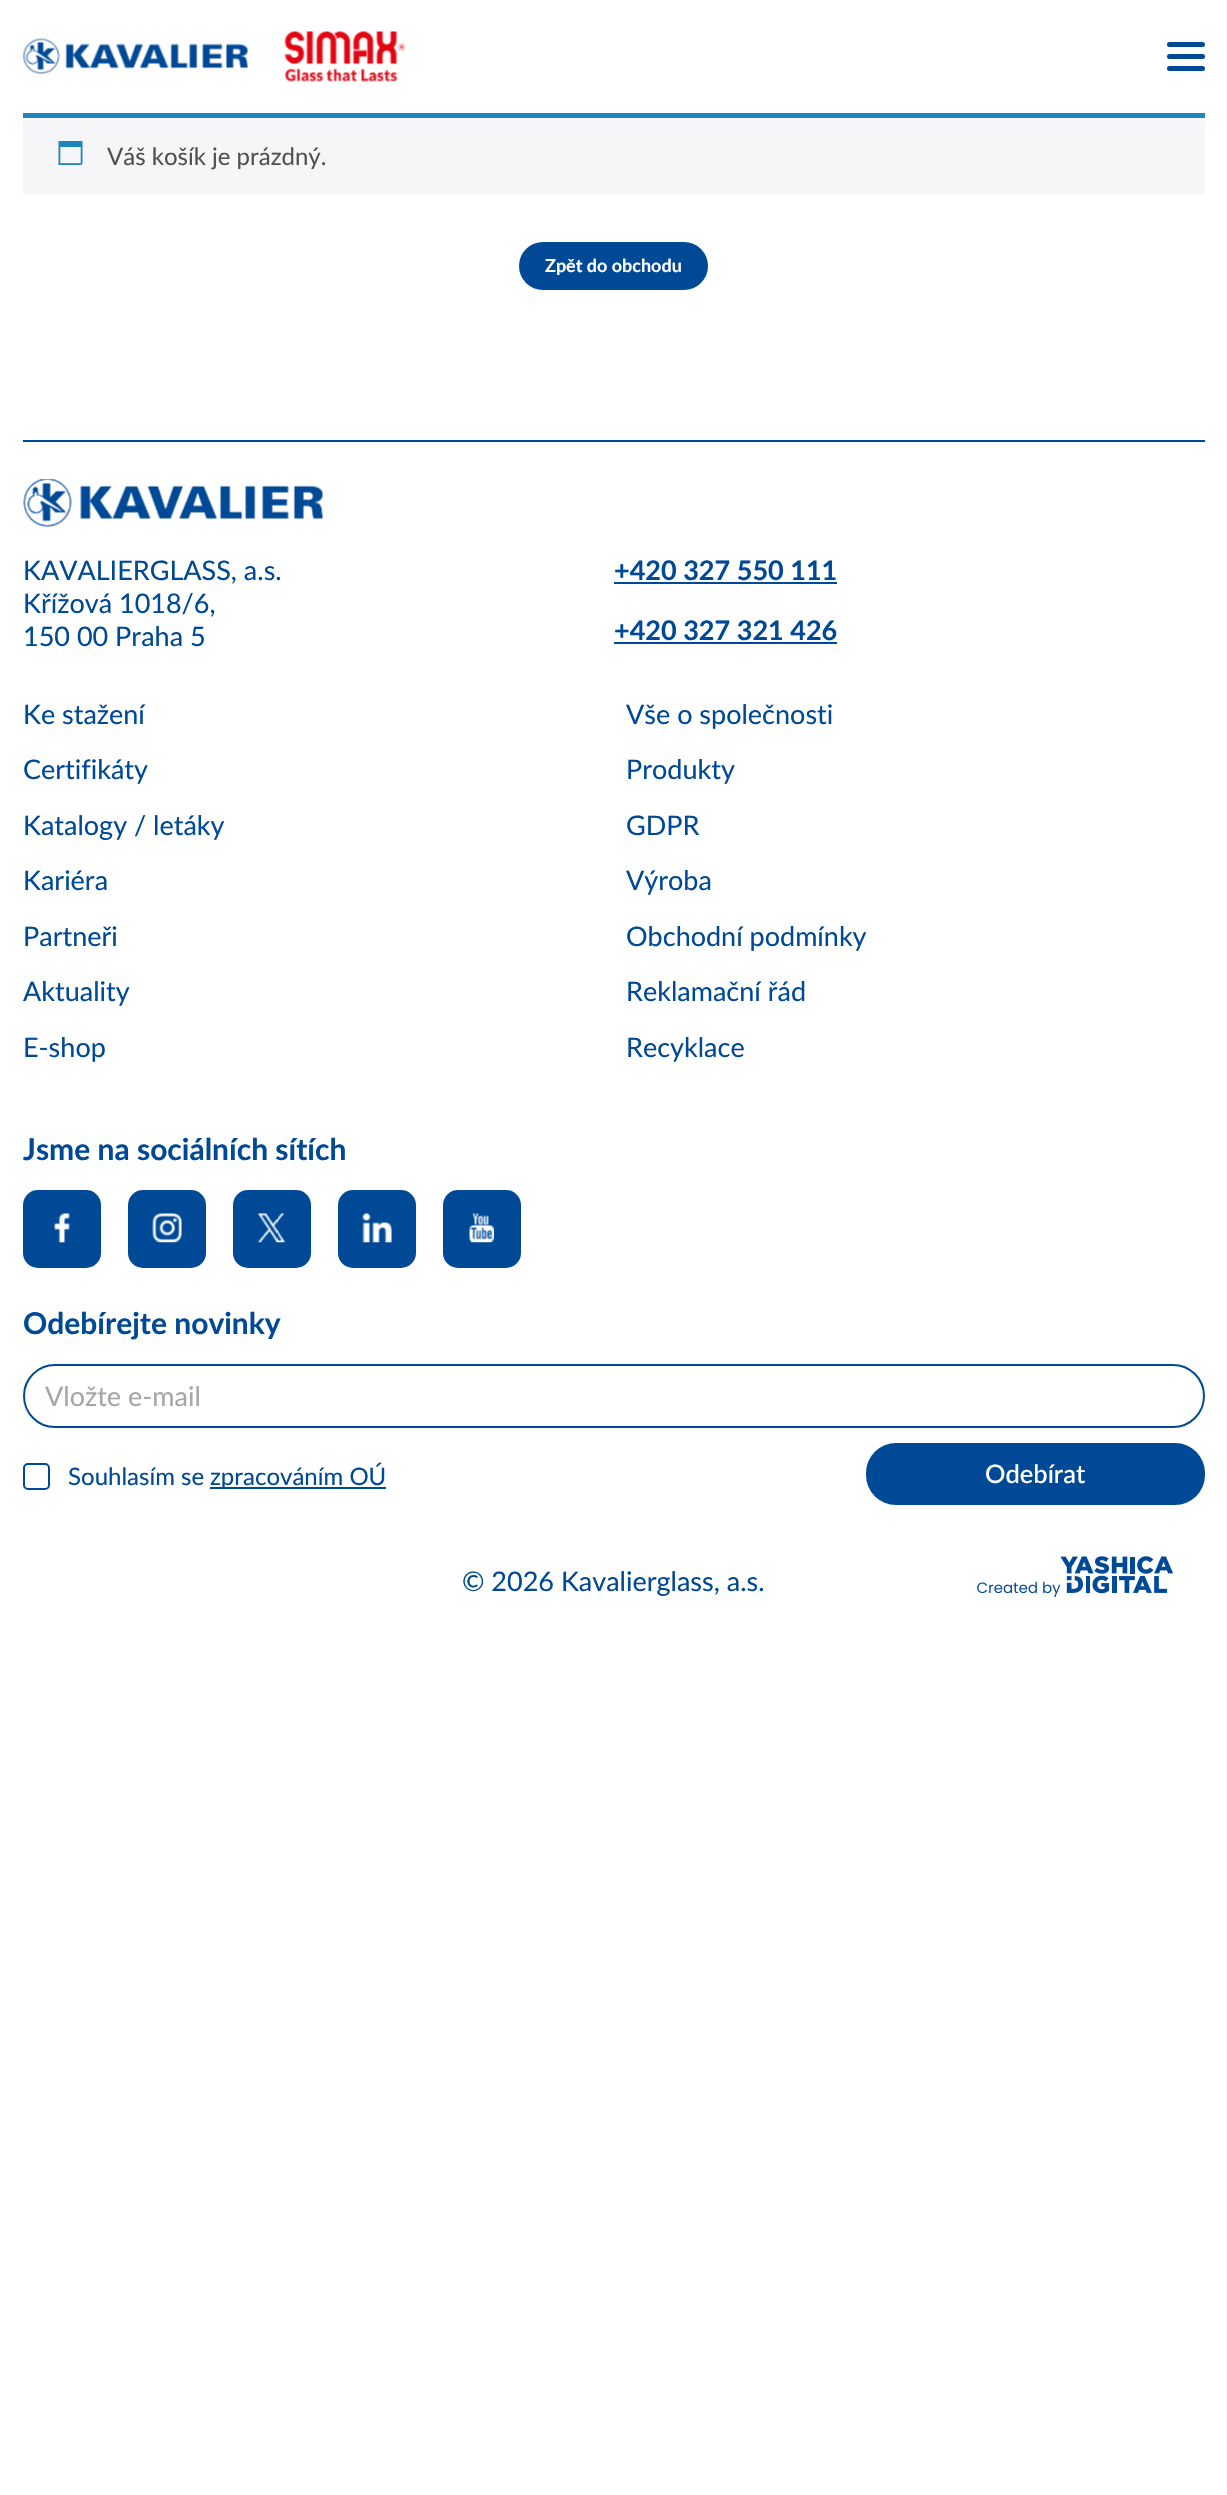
void draw(SkCanvas* canvas) {
	SkPaint paint;
	paint.setAntiAlias(true);
	canvas->clear(0xffffffff);
	canvas->drawImageRect(SkImages::DeferredFromEncodedData(SkData::MakeFromFileName("img1.png")), SkRect::MakeXYWH(22, 38, 226, 36), SkSamplingOptions());
	canvas->drawImageRect(SkImages::DeferredFromEncodedData(SkData::MakeFromFileName("img2.png")), SkRect::MakeXYWH(284, 31, 122, 51), SkSamplingOptions());
	paint.setColor(0xff004996);
	canvas->drawRoundRect(SkRect::MakeXYWH(1167, 42, 38, 5), 2.5, 2.5, paint);
	canvas->drawRoundRect(SkRect::MakeXYWH(1167, 54, 38, 5), 2.5, 2.5, paint);
	canvas->drawRoundRect(SkRect::MakeXYWH(1167, 66, 38, 5), 2.5, 2.5, paint);
	paint.setColor(0xfff6f5f8);
	canvas->drawRect(SkRect::MakeXYWH(23, 118, 1182, 76), paint);
	paint.setColor(0xff1e85be);
	canvas->drawRect(SkRect::MakeXYWH(23, 113, 1182, 5), paint);
	canvas->drawImageRect(SkImages::DeferredFromEncodedData(SkData::MakeFromFileName("img3.png")), SkRect::MakeXYWH(58, 141, 25, 24), SkSamplingOptions());
	SkFont f1(fontMgr->matchFamilyStyle("Lato", SkFontStyle::Normal()), 24);
	f1.setSubpixel(true);
	paint.setColor(0xff515151);
	canvas->drawString("Váš košík je prázdný.", 107, 165, f1, paint);
	paint.setColor(0xff004996);
	canvas->drawRoundRect(SkRect::MakeXYWH(519, 242, 189, 48), 24, 24, paint);
	SkFont f2(fontMgr->matchFamilyStyle("Lato", SkFontStyle::Bold()), 18);
	f2.setSubpixel(true);
	paint.setColor(0xffffffff);
	canvas->drawString("Zpět do obchodu", 545, 272, f2, paint);
	paint.setColor(0xff004996);
	canvas->drawRect(SkRect::MakeXYWH(23, 440, 1182, 2), paint);
	canvas->drawImageRect(SkImages::DeferredFromEncodedData(SkData::MakeFromFileName("img4.png")), SkRect::MakeXYWH(23, 479, 300, 48), SkSamplingOptions());
	SkFont f3(fontMgr->matchFamilyStyle("Lato", SkFontStyle::Normal()), 27);
	f3.setSubpixel(true);
	canvas->drawString("KAVALIERGLASS, a.s.", 23, 580, f3, paint);
	canvas->drawString("Křížová 1018/6,", 23, 613, f3, paint);
	canvas->drawString("150 00 Praha 5", 23, 646, f3, paint);
	SkFont f4(fontMgr->matchFamilyStyle("Lato", SkFontStyle::Bold()), 27);
	f4.setSubpixel(true);
	canvas->drawString("+420 327 550 111", 614, 580, f4, paint);
	canvas->drawRect(SkRect::MakeXYWH(614, 582, 223, 2), paint);
	canvas->drawString("+420 327 321 426", 614, 640, f4, paint);
	canvas->drawRect(SkRect::MakeXYWH(614, 642, 223, 2), paint);
	canvas->drawString("Ke stažení", 23, 724, f3, paint);
	canvas->drawString("Vše o společnosti", 626, 724, f3, paint);
	canvas->drawString("Certifikáty", 23, 779, f3, paint);
	canvas->drawString("Produkty", 626, 779, f3, paint);
	canvas->drawString("Katalogy / letáky", 23, 835, f3, paint);
	canvas->drawString("GDPR", 626, 835, f3, paint);
	canvas->drawString("Kariéra", 23, 890, f3, paint);
	canvas->drawString("Výroba", 626, 890, f3, paint);
	canvas->drawString("Partneři", 23, 946, f3, paint);
	canvas->drawString("Obchodní podmínky", 626, 946, f3, paint);
	canvas->drawString("Aktuality", 23, 1001, f3, paint);
	canvas->drawString("Reklamační řád", 626, 1001, f3, paint);
	canvas->drawString("E-shop", 23, 1057, f3, paint);
	canvas->drawString("Recyklace", 626, 1057, f3, paint);
	SkFont f5(fontMgr->matchFamilyStyle("Lato", SkFontStyle::Bold()), 30);
	f5.setSubpixel(true);
	canvas->drawString("Jsme na sociálních sítích", 23, 1160, f5, paint);
	canvas->drawRoundRect(SkRect::MakeXYWH(23, 1190, 78, 78), 15, 15, paint);
	canvas->drawImageRect(SkImages::DeferredFromEncodedData(SkData::MakeFromFileName("img5.png")), SkRect::MakeXYWH(54, 1213, 16, 30), SkSamplingOptions());
	canvas->drawRoundRect(SkRect::MakeXYWH(128, 1190, 78, 78), 15, 15, paint);
	canvas->drawImageRect(SkImages::DeferredFromEncodedData(SkData::MakeFromFileName("img6.png")), SkRect::MakeXYWH(152, 1213, 30, 30), SkSamplingOptions());
	canvas->drawRoundRect(SkRect::MakeXYWH(233, 1190, 78, 78), 15, 15, paint);
	canvas->drawImageRect(SkImages::DeferredFromEncodedData(SkData::MakeFromFileName("img7.png")), SkRect::MakeXYWH(257, 1213, 29, 30), SkSamplingOptions());
	canvas->drawRoundRect(SkRect::MakeXYWH(338, 1190, 78, 78), 15, 15, paint);
	canvas->drawImageRect(SkImages::DeferredFromEncodedData(SkData::MakeFromFileName("img8.png")), SkRect::MakeXYWH(362, 1213, 30, 30), SkSamplingOptions());
	canvas->drawRoundRect(SkRect::MakeXYWH(443, 1190, 78, 78), 15, 15, paint);
	canvas->drawImageRect(SkImages::DeferredFromEncodedData(SkData::MakeFromFileName("img9.png")), SkRect::MakeXYWH(469, 1213, 25, 30), SkSamplingOptions());
	canvas->drawString("Odebírejte novinky", 23, 1334, f5, paint);
	paint.setStroke(true);
	paint.setStrokeWidth(2);
	canvas->drawRoundRect(SkRect::MakeXYWH(24, 1365, 1180, 62), 31, 31, paint);
	paint.setStroke(false);
	paint.setColor(0xffa6a6a6);
	canvas->drawString("Vložte e-mail", 45, 1406, f3, paint);
	paint.setStroke(true);
	paint.setColor(0xff004996);
	canvas->drawRoundRect(SkRect::MakeXYWH(24, 1464, 25, 25), 4, 4, paint);
	paint.setStroke(false);
	canvas->drawString("Souhlasím se", 68, 1485, f1, paint);
	canvas->drawRect(SkRect::MakeXYWH(210, 1487, 176, 2), paint);
	canvas->drawString("zpracováním OÚ", 210, 1485, f1, paint);
	canvas->drawRoundRect(SkRect::MakeXYWH(866, 1443, 339, 62), 30, 30, paint);
	SkFont f6(fontMgr->matchFamilyStyle("Lato", SkFontStyle(500, SkFontStyle::kNormal_Width, SkFontStyle::kUpright_Slant)), 25.5);
	f6.setSubpixel(true);
	paint.setColor(0xffffffff);
	canvas->drawString("Odebírat", 985, 1483, f6, paint);
	paint.setColor(0xff004996);
	canvas->drawString("© 2026 Kavalierglass, a.s.", 462, 1591, f3, paint);
	canvas->drawImageRect(SkImages::DeferredFromEncodedData(SkData::MakeFromFileName("img10.png")), SkRect::MakeXYWH(977, 1556, 196, 41), SkSamplingOptions());
}
